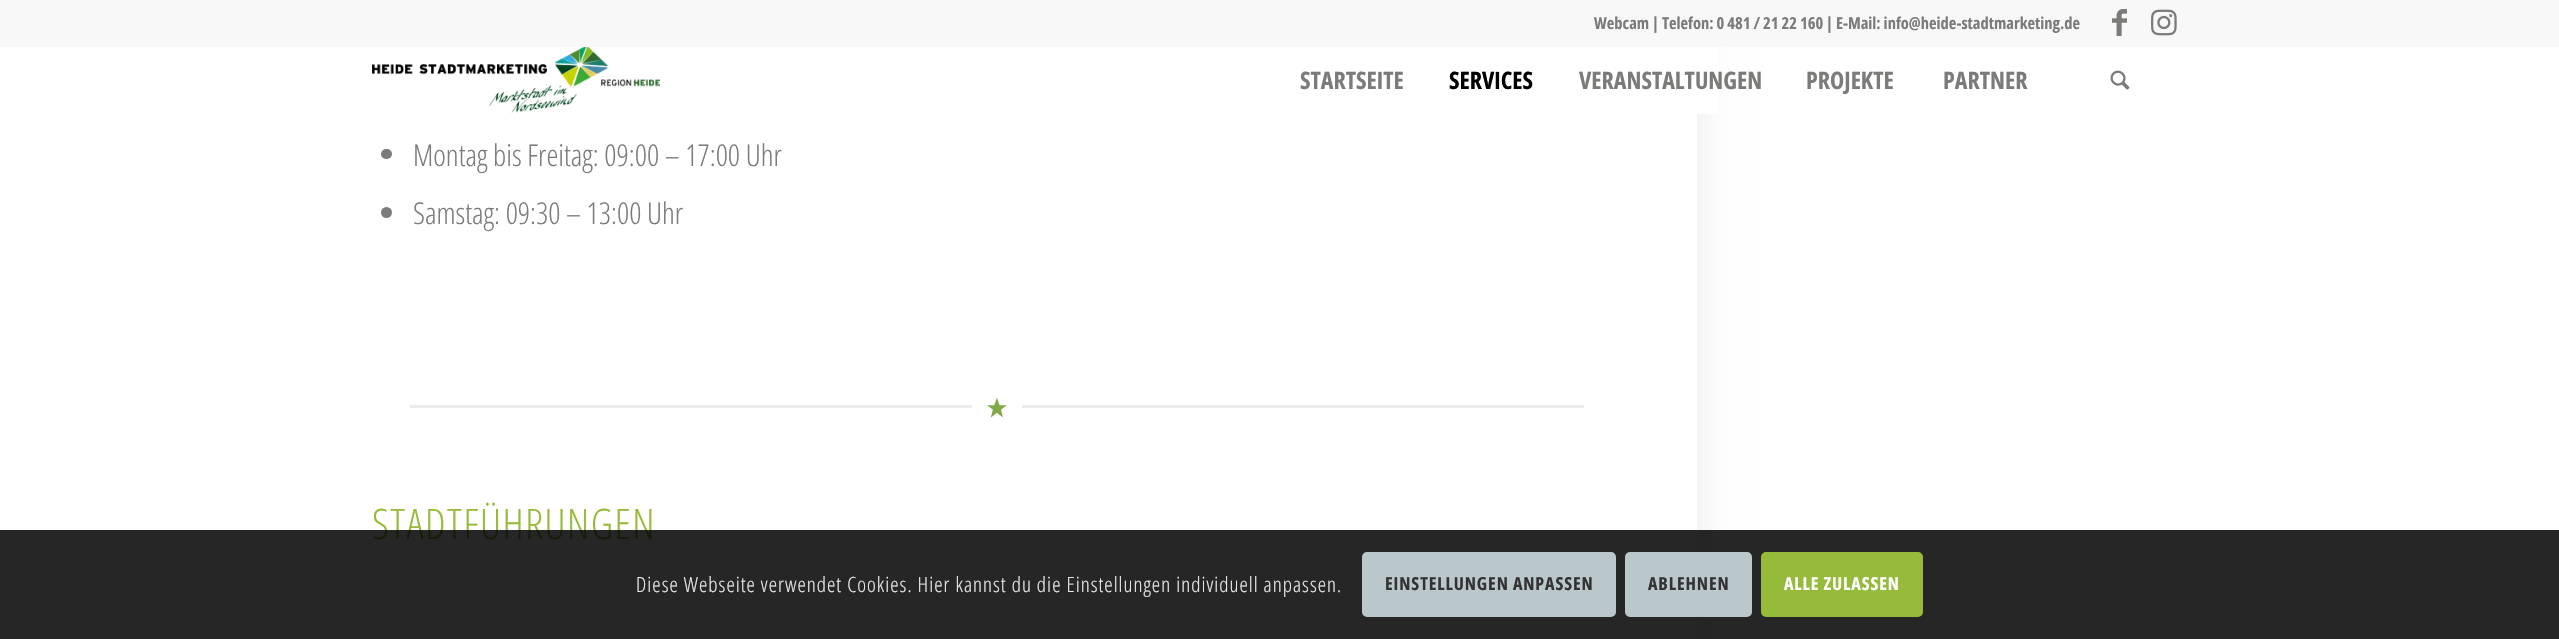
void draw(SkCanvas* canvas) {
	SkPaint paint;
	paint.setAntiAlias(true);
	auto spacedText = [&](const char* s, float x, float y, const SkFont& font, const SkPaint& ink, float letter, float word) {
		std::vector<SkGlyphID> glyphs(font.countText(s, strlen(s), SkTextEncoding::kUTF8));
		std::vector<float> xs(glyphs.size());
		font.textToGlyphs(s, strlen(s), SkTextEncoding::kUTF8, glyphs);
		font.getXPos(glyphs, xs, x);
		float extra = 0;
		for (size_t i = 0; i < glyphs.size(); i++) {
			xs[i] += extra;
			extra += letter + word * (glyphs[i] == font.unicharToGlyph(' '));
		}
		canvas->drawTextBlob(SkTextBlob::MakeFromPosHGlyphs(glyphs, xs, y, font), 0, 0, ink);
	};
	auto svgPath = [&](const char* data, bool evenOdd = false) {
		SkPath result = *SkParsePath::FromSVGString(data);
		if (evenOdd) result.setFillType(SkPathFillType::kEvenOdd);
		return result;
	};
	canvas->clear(0xffffffff);
	canvas->save();
	canvas->clipPath(svgPath("M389 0H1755V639H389ZM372-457H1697V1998H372Z", true), true);
	paint.setColor(0xffe9e9eb);
	paint.setMaskFilter(SkMaskFilter::MakeBlur(kNormal_SkBlurStyle, 19));
	canvas->drawRect(SkRect::MakeXYWH(447, -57, 1250, 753), paint);
	paint.setMaskFilter(nullptr);
	canvas->restore();
	paint.setColor(0xfff8f8f8);
	canvas->drawRect(SkRect::MakeXYWH(0, 0, 2559, 47), paint);
	SkFont f1(fontMgr->matchFamilyStyle("Open Sans", SkFontStyle::Bold()), 16.5);
	f1.setSubpixel(true);
	paint.setColor(0xff7b7b7a);
	canvas->drawString("Webcam | Telefon: 0 481 / 21 22 160 | E-Mail: info@heide-stadtmarketing.de", 1594, 29, f1, paint);
	canvas->drawImageRect(SkImages::DeferredFromEncodedData(SkData::MakeFromFileName("img1.png")), SkRect::MakeXYWH(2112, 9, 15, 27), SkSamplingOptions());
	canvas->drawImageRect(SkImages::DeferredFromEncodedData(SkData::MakeFromFileName("img2.png")), SkRect::MakeXYWH(2151, 9, 26, 27), SkSamplingOptions());
	paint.setColor(0xf2ffffff);
	canvas->drawRect(SkRect::MakeXYWH(1696, 47, 23, 67), paint);
	canvas->drawImageRect(SkImages::DeferredFromEncodedData(SkData::MakeFromFileName("img3.png")), SkRect::MakeXYWH(372, 47, 288, 66), SkSamplingOptions());
	SkFont f2(fontMgr->matchFamilyStyle("Open Sans", SkFontStyle::Bold()), 24);
	f2.setSubpixel(true);
	paint.setColor(0xff7b7b7a);
	canvas->drawString("STARTSEITE", 1300, 89, f2, paint);
	paint.setColor(0xff000000);
	canvas->drawString("SERVICES", 1449, 89, f2, paint);
	paint.setColor(0xff7b7b7a);
	canvas->drawString("VERANSTALTUNGEN", 1579, 89, f2, paint);
	canvas->drawString("PROJEKTE", 1806, 89, f2, paint);
	canvas->drawString("PARTNER", 1943, 89, f2, paint);
	canvas->drawImageRect(SkImages::DeferredFromEncodedData(SkData::MakeFromFileName("img4.png")), SkRect::MakeXYWH(2110, 70, 20, 20), SkSamplingOptions());
	canvas->drawRoundRect(SkRect::MakeXYWH(381, 149, 11, 10), 5, 5, paint);
	SkFont f3(fontMgr->matchFamilyStyle("Open Sans", SkFontStyle(300, SkFontStyle::kNormal_Width, SkFontStyle::kUpright_Slant)), 30);
	f3.setSubpixel(true);
	canvas->drawString("Montag bis Freitag: 09:00 – 17:00 Uhr", 413, 166, f3, paint);
	canvas->drawCircle(386.5, 212.5, 5.5, paint);
	canvas->drawString("Samstag: 09:30 – 13:00 Uhr", 413, 224, f3, paint);
	paint.setColor(0xffebebeb);
	canvas->drawRect(SkRect::MakeXYWH(410, 405, 562, 3), paint);
	canvas->drawImageRect(SkImages::DeferredFromEncodedData(SkData::MakeFromFileName("img5.png")), SkRect::MakeXYWH(987, 397, 20, 21), SkSamplingOptions());
	canvas->drawRect(SkRect::MakeXYWH(1022, 405, 562, 3), paint);
	SkFont f4(fontMgr->matchFamilyStyle("Open Sans", SkFontStyle(300, SkFontStyle::kNormal_Width, SkFontStyle::kUpright_Slant)), 42);
	f4.setSubpixel(true);
	paint.setColor(0xff96bb3a);
	spacedText("STADTFÜHRUNGEN", 372, 539, f4, paint, 1.5, 0);
	paint.setColor(0xd9000000);
	canvas->drawRect(SkRect::MakeXYWH(0, 530, 2559, 109), paint);
	SkFont f5(fontMgr->matchFamilyStyle("Open Sans", SkFontStyle(300, SkFontStyle::kNormal_Width, SkFontStyle::kUpright_Slant)), 21);
	f5.setSubpixel(true);
	paint.setColor(0xffe9e9e9);
	spacedText("Diese Webseite verwendet Cookies. Hier kannst du die Einstellungen individuell anpassen.", 636, 592, f5, paint, 1.05, 0);
	paint.setColor(0xffbac8cc);
	canvas->drawRoundRect(SkRect::MakeXYWH(1363.5, 553.5, 251, 62), 3.5, 3.5, paint);
	paint.setStroke(true);
	paint.setStrokeWidth(3);
	canvas->drawRoundRect(SkRect::MakeXYWH(1363.5, 553.5, 251, 62), 3.5, 3.5, paint);
	SkFont f6(fontMgr->matchFamilyStyle("Open Sans", SkFontStyle::Bold()), 18);
	f6.setSubpixel(true);
	paint.setStroke(false);
	paint.setColor(0xff333333);
	spacedText("EINSTELLUNGEN ANPASSEN", 1385, 590, f6, paint, 0.9, 0);
	paint.setColor(0xffbac8cc);
	canvas->drawRoundRect(SkRect::MakeXYWH(1626.5, 553.5, 124, 62), 3.5, 3.5, paint);
	paint.setStroke(true);
	canvas->drawRoundRect(SkRect::MakeXYWH(1626.5, 553.5, 124, 62), 3.5, 3.5, paint);
	paint.setStroke(false);
	paint.setColor(0xff333333);
	spacedText("ABLEHNEN", 1648, 590, f6, paint, 0.9, 0);
	paint.setColor(0xff96bb3a);
	canvas->drawRoundRect(SkRect::MakeXYWH(1762.5, 553.5, 159, 62), 3.5, 3.5, paint);
	paint.setStroke(true);
	canvas->drawRoundRect(SkRect::MakeXYWH(1762.5, 553.5, 159, 62), 3.5, 3.5, paint);
	paint.setStroke(false);
	paint.setColor(0xffffffff);
	spacedText("ALLE ZULASSEN", 1784, 590, f6, paint, 0.9, 0);
}
